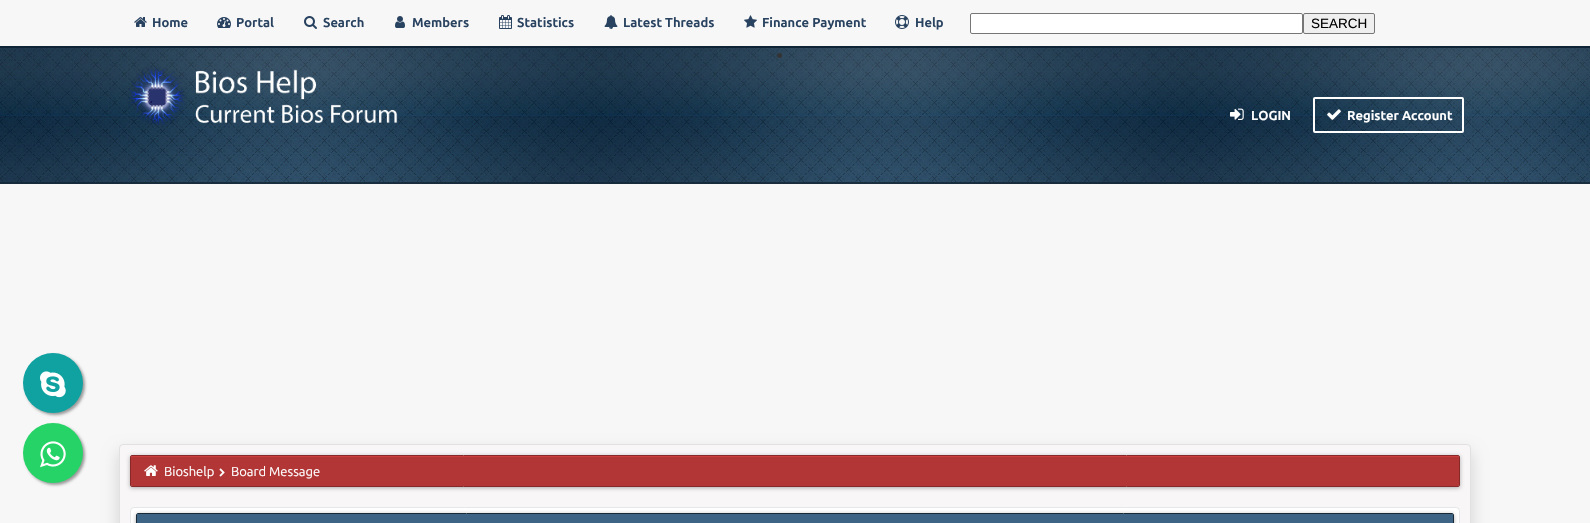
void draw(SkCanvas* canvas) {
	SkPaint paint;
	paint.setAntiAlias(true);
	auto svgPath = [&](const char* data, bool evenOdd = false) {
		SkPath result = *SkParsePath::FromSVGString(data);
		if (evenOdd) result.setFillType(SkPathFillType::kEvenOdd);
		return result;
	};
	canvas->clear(0xfff7f7f7);
	canvas->drawImageRect(SkImages::DeferredFromEncodedData(SkData::MakeFromFileName("img1.png")), SkRect::MakeXYWH(0, 46, 1590, 138), SkSamplingOptions());
	canvas->drawImageRect(SkImages::DeferredFromEncodedData(SkData::MakeFromFileName("img2.png")), SkRect::MakeXYWH(134, 17, 13, 10), SkSamplingOptions());
	SkFont f1(fontMgr->matchFamilyStyle("Ubuntu", SkFontStyle::Bold()), 13);
	f1.setSubpixel(true);
	paint.setColor(0xff284260);
	canvas->drawString("Home", 152, 27, f1, paint);
	canvas->drawImageRect(SkImages::DeferredFromEncodedData(SkData::MakeFromFileName("img3.png")), SkRect::MakeXYWH(217, 17, 14, 11), SkSamplingOptions());
	canvas->drawString("Portal", 236, 27, f1, paint);
	canvas->drawImageRect(SkImages::DeferredFromEncodedData(SkData::MakeFromFileName("img4.png")), SkRect::MakeXYWH(304, 16, 13, 13), SkSamplingOptions());
	canvas->drawString("Search", 323, 27, f1, paint);
	canvas->drawImageRect(SkImages::DeferredFromEncodedData(SkData::MakeFromFileName("img5.png")), SkRect::MakeXYWH(395, 16, 10, 12), SkSamplingOptions());
	canvas->drawString("Members", 412, 27, f1, paint);
	canvas->drawImageRect(SkImages::DeferredFromEncodedData(SkData::MakeFromFileName("img6.png")), SkRect::MakeXYWH(499, 15, 13, 14), SkSamplingOptions());
	canvas->drawString("Statistics", 517, 27, f1, paint);
	canvas->drawImageRect(SkImages::DeferredFromEncodedData(SkData::MakeFromFileName("img7.png")), SkRect::MakeXYWH(604, 15, 14, 14), SkSamplingOptions());
	canvas->drawString("Latest Threads", 623, 27, f1, paint);
	canvas->drawImageRect(SkImages::DeferredFromEncodedData(SkData::MakeFromFileName("img8.png")), SkRect::MakeXYWH(744, 15, 13, 13), SkSamplingOptions());
	canvas->drawString("Finance Payment", 762, 27, f1, paint);
	canvas->drawImageRect(SkImages::DeferredFromEncodedData(SkData::MakeFromFileName("img9.png")), SkRect::MakeXYWH(895, 15, 14, 14), SkSamplingOptions());
	canvas->drawString("Help", 915, 27, f1, paint);
	paint.setColor(0xffffffff);
	canvas->drawRoundRect(SkRect::MakeXYWH(970.5, 13.5, 332, 20), 1.5, 1.5, paint);
	paint.setStroke(true);
	paint.setStrokeWidth(1);
	paint.setColor(0xff767676);
	canvas->drawRoundRect(SkRect::MakeXYWH(970.5, 13.5, 332, 20), 1.5, 1.5, paint);
	paint.setStroke(false);
	paint.setColor(0xffefefef);
	canvas->drawRoundRect(SkRect::MakeXYWH(1303.5, 13.5, 71, 20), 1.5, 1.5, paint);
	paint.setStroke(true);
	paint.setColor(0xff767676);
	canvas->drawRoundRect(SkRect::MakeXYWH(1303.5, 13.5, 71, 20), 1.5, 1.5, paint);
	SkFont f2(fontMgr->matchFamilyStyle("Liberation Sans", SkFontStyle::Normal()), 13.5);
	f2.setSubpixel(true);
	paint.setStroke(false);
	paint.setColor(0xff000000);
	canvas->drawString("SEARCH", 1311, 28, f2, paint);
	paint.setColor(0xff333333);
	canvas->drawCircle(779.5, 55.5, 2.5, paint);
	canvas->drawImageRect(SkImages::DeferredFromEncodedData(SkData::MakeFromFileName("img10.png")), SkRect::MakeXYWH(126, 66, 272, 60), SkSamplingOptions());
	canvas->drawImageRect(SkImages::DeferredFromEncodedData(SkData::MakeFromFileName("img11.png")), SkRect::MakeXYWH(1230, 108, 14, 12), SkSamplingOptions());
	paint.setColor(0xffffffff);
	canvas->drawString("LOGIN", 1251, 120, f1, paint);
	paint.setStroke(true);
	paint.setStrokeWidth(2);
	canvas->drawRoundRect(SkRect::MakeXYWH(1314, 98, 149, 34), 1, 1, paint);
	canvas->drawImageRect(SkImages::DeferredFromEncodedData(SkData::MakeFromFileName("img12.png")), SkRect::MakeXYWH(1327, 109, 14, 11), SkSamplingOptions());
	paint.setStroke(false);
	canvas->drawString("Register Account", 1347, 120, f1, paint);
	paint.setColor(0xff999999);
	paint.setMaskFilter(SkMaskFilter::MakeBlur(kNormal_SkBlurStyle, 1.5));
	canvas->drawRoundRect(SkRect::MakeXYWH(25, 355, 60, 60), 30, 30, paint);
	paint.setMaskFilter(nullptr);
	paint.setColor(0xff10a1a1);
	canvas->drawCircle(53, 383, 30, paint);
	canvas->drawImageRect(SkImages::DeferredFromEncodedData(SkData::MakeFromFileName("img13.png")), SkRect::MakeXYWH(40, 371, 26, 27), SkSamplingOptions());
	paint.setColor(0xff999999);
	paint.setMaskFilter(SkMaskFilter::MakeBlur(kNormal_SkBlurStyle, 1.5));
	canvas->drawRoundRect(SkRect::MakeXYWH(25, 425, 60, 60), 30, 30, paint);
	paint.setMaskFilter(nullptr);
	paint.setColor(0xff25d366);
	canvas->drawCircle(53, 453, 30, paint);
	canvas->drawImageRect(SkImages::DeferredFromEncodedData(SkData::MakeFromFileName("img14.png")), SkRect::MakeXYWH(40, 441, 26, 27), SkSamplingOptions());
	paint.setColor(0x26000000);
	paint.setMaskFilter(SkMaskFilter::MakeBlur(kNormal_SkBlurStyle, 8));
	canvas->drawRoundRect(SkRect::MakeXYWH(119, 452, 1352, 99), 4, 4, paint);
	paint.setMaskFilter(nullptr);
	paint.setColor(0xfff8f6f6);
	canvas->drawRoundRect(SkRect::MakeXYWH(119.5, 444.5, 1351, 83), 3.5, 3.5, paint);
	paint.setStroke(true);
	paint.setStrokeWidth(1);
	paint.setColor(0xffe1e1e1);
	canvas->drawRoundRect(SkRect::MakeXYWH(119.5, 444.5, 1351, 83), 3.5, 3.5, paint);
	paint.setStroke(false);
	paint.setColor(0x4d000000);
	paint.setMaskFilter(SkMaskFilter::MakeBlur(kNormal_SkBlurStyle, 2));
	canvas->drawRoundRect(SkRect::MakeXYWH(130, 456, 1330, 32), 2, 2, paint);
	paint.setMaskFilter(nullptr);
	paint.setColor(0xffb23636);
	canvas->drawRoundRect(SkRect::MakeXYWH(131, 456, 1328, 30), 1, 1, paint);
	paint.setColor(0xffcc3d3d);
	canvas->drawPath(svgPath("M132 457H1458L1459 458V457L1458 456H132L131 457V458Z"), paint);
	paint.setStroke(true);
	paint.setColor(0xff882929);
	canvas->drawRoundRect(SkRect::MakeXYWH(130.5, 455.5, 1329, 31), 1.5, 1.5, paint);
	canvas->drawImageRect(SkImages::DeferredFromEncodedData(SkData::MakeFromFileName("img15.png")), SkRect::MakeXYWH(144, 465, 14, 11), SkSamplingOptions());
	SkFont f3(fontMgr->matchFamilyStyle("Ubuntu", SkFontStyle::Normal()), 13);
	f3.setSubpixel(true);
	paint.setStroke(false);
	paint.setColor(0xffffffff);
	canvas->drawString("Bioshelp", 164, 476, f3, paint);
	canvas->drawImageRect(SkImages::DeferredFromEncodedData(SkData::MakeFromFileName("img16.png")), SkRect::MakeXYWH(219, 468, 6, 9), SkSamplingOptions());
	canvas->drawString("Board Message", 231, 476, f3, paint);
	canvas->drawRoundRect(SkRect::MakeXYWH(130.5, 507.5, 1329, 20), 3.5, 3.5, paint);
	paint.setStroke(true);
	paint.setColor(0xffe4e6e9);
	canvas->drawRoundRect(SkRect::MakeXYWH(130.5, 507.5, 1329, 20), 3.5, 3.5, paint);
	paint.setStroke(false);
	paint.setColor(0x4d000000);
	paint.setMaskFilter(SkMaskFilter::MakeBlur(kNormal_SkBlurStyle, 2));
	canvas->drawRoundRect(SkRect::MakeXYWH(136, 514, 1318, 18), 3, 3, paint);
	paint.setMaskFilter(nullptr);
	canvas->drawImageRect(SkImages::DeferredFromEncodedData(SkData::MakeFromFileName("img17.png")), SkRect::MakeXYWH(137, 514, 1316, 1), SkSamplingOptions());
	paint.setColor(0xff3d6485);
	canvas->drawPath(svgPath("M138 514C137 514 137 514 137 515V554C137 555 138 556 139 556H1451C1452 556 1453 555 1453 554V515C1453 514 1453 514 1452 514Z"), paint);
	paint.setStroke(true);
	paint.setColor(0xff1a2936);
	canvas->drawPath(svgPath("M138 513.5H1452C1453 513.5 1453.5 514 1453.5 515V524C1453.5 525.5 1452.5 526.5 1451 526.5H139C137.5 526.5 136.5 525.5 136.5 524V515C136.5 514 137 513.5 138 513.5Z"), paint);
}
